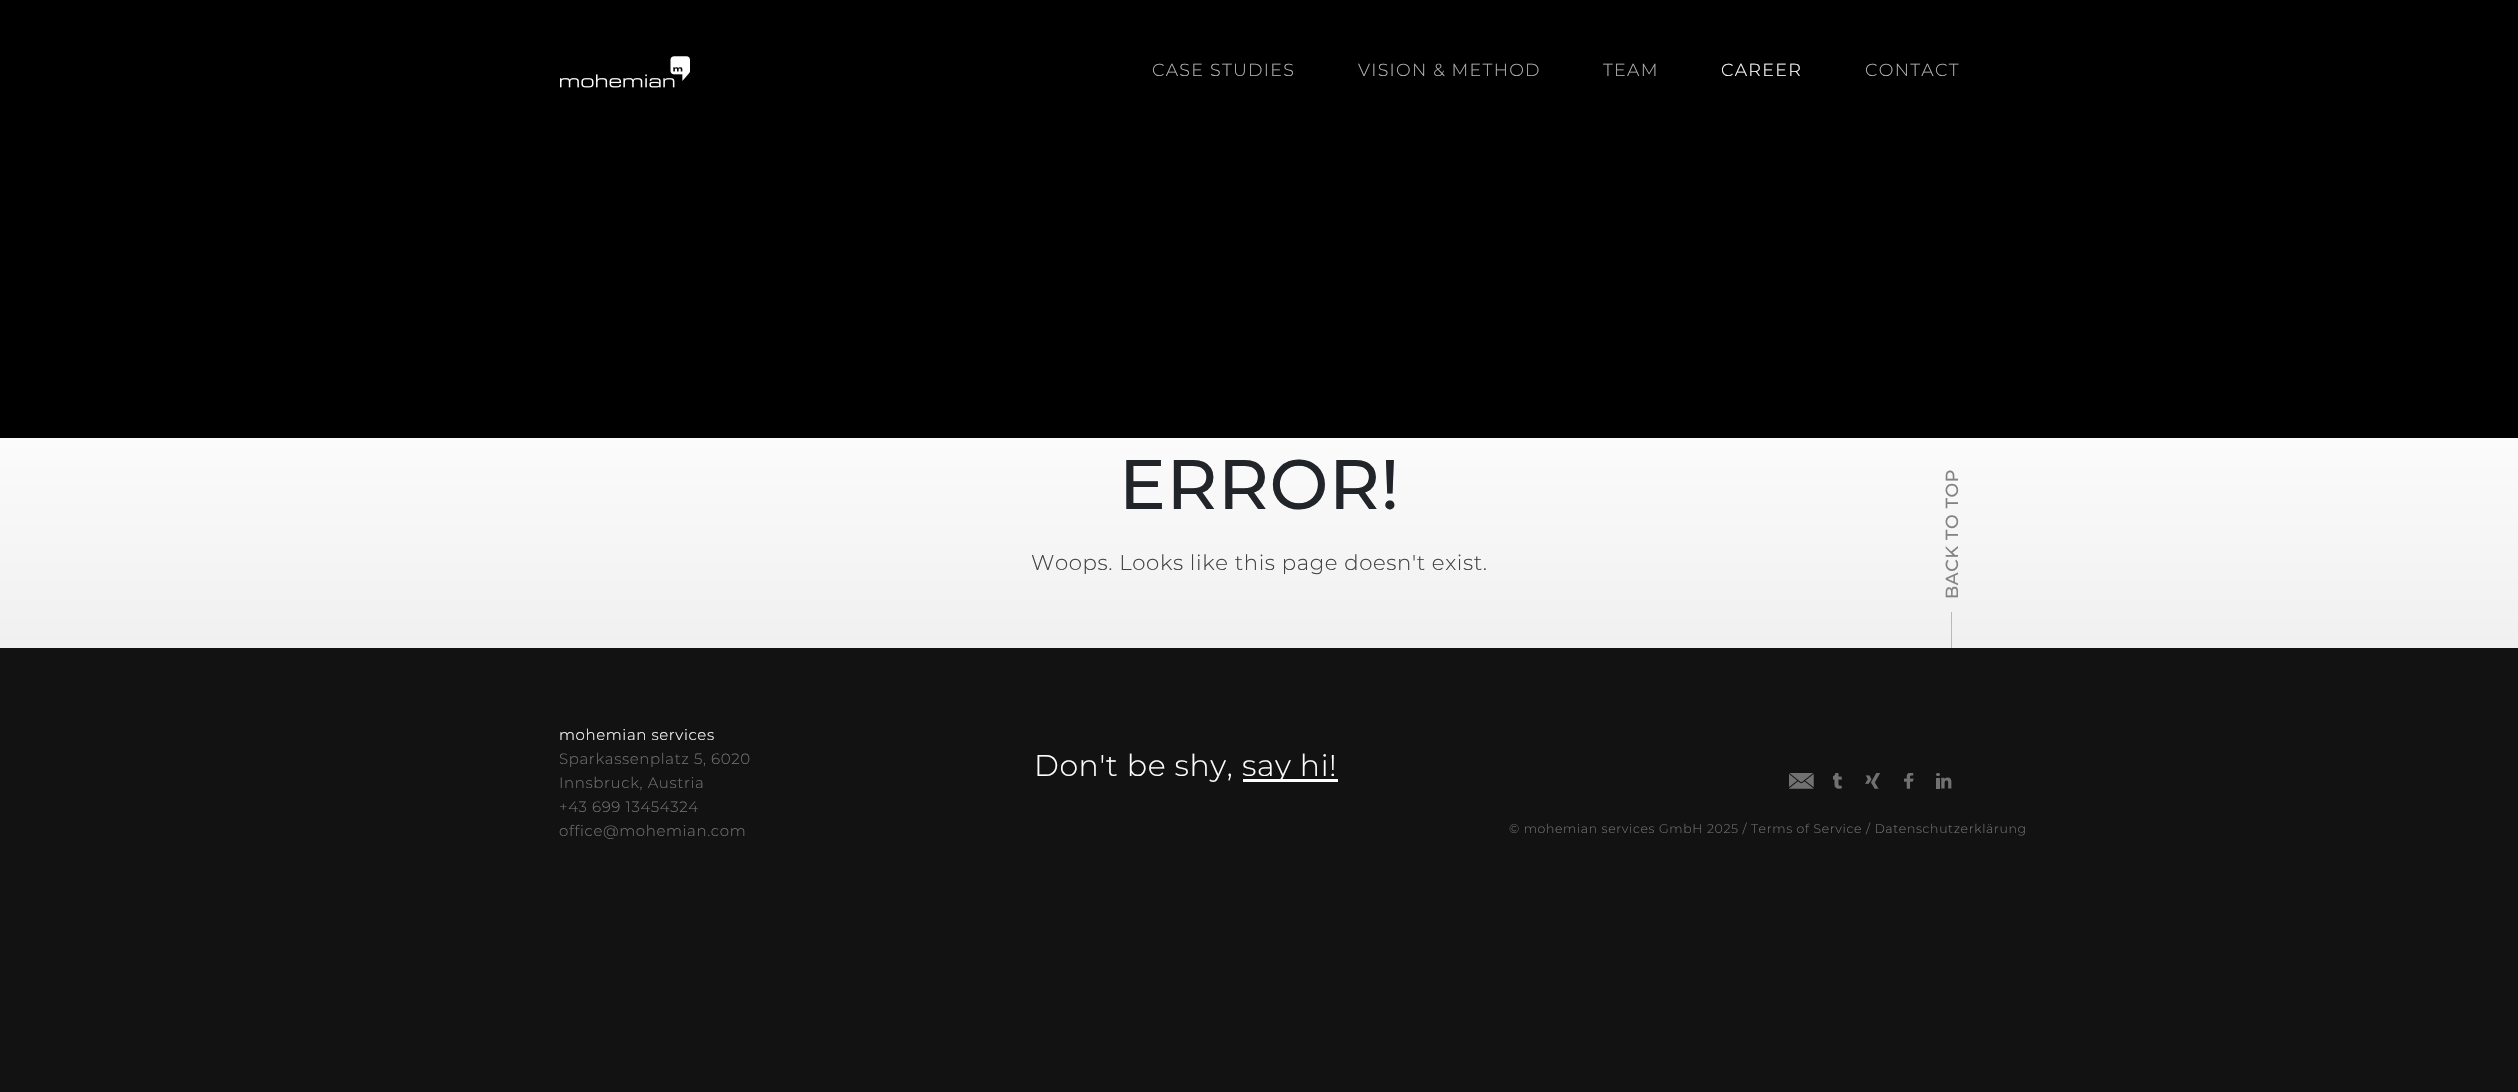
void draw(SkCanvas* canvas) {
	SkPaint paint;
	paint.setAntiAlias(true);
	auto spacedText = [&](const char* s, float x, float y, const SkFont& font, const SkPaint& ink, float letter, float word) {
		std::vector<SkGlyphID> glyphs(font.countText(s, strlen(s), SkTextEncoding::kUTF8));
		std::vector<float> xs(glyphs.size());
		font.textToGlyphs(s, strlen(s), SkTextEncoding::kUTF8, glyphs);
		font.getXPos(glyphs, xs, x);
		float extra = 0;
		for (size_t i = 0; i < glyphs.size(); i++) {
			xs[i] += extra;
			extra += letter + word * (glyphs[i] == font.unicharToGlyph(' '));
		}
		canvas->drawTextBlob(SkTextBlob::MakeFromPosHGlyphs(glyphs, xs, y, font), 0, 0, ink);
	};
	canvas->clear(0xff121212);
	paint.setColor(0xff000000);
	canvas->drawRect(SkRect::MakeXYWH(0, 0, 2518, 438), paint);
	canvas->drawImageRect(SkImages::DeferredFromEncodedData(SkData::MakeFromFileName("img1.png")), SkRect::MakeXYWH(560, 56, 130, 32), SkSamplingOptions());
	SkFont f1(fontMgr->matchFamilyStyle("Montserrat", SkFontStyle(300, SkFontStyle::kNormal_Width, SkFontStyle::kUpright_Slant)), 17.5);
	f1.setSubpixel(true);
	paint.setColor(0xffb3b3b3);
	spacedText("CASE STUDIES", 1152, 76, f1, paint, 1.25, 0);
	spacedText("VISION & METHOD", 1358, 76, f1, paint, 1.25, 0);
	spacedText("TEAM", 1603, 76, f1, paint, 1.25, 0);
	paint.setColor(0xffffffff);
	spacedText("CAREER", 1721, 76, f1, paint, 1.25, 0);
	paint.setColor(0xffb3b3b3);
	spacedText("CONTACT", 1865, 76, f1, paint, 1.25, 0);
	{
		const SkColor colors[] = {0xfff0f0f0, 0xfffbfbfb};
		const float stops[] = {0, 1};
		const SkPoint ends[] = {{1259, 648}, {1259, 438}};
		paint.setShader(SkGradientShader::MakeLinear(ends, colors, stops, 2, SkTileMode::kClamp));
		paint.setAlpha(255);
	}
	canvas->drawRect(SkRect::MakeXYWH(0, 438, 2518, 210), paint);
	SkFont f2(fontMgr->matchFamilyStyle("Montserrat", SkFontStyle(500, SkFontStyle::kNormal_Width, SkFontStyle::kUpright_Slant)), 70);
	f2.setSubpixel(true);
	paint.setShader(nullptr);
	paint.setColor(0xff212529);
	spacedText("ERROR!", 1119, 509, f2, paint, 0.62, 0);
	SkFont f3(fontMgr->matchFamilyStyle("Montserrat", SkFontStyle(300, SkFontStyle::kNormal_Width, SkFontStyle::kUpright_Slant)), 21.25);
	f3.setSubpixel(true);
	paint.setColor(0xff424242);
	spacedText("Woops. Looks like this page doesn't exist.", 1031, 570, f3, paint, 0.62, 0);
	SkFont f4(fontMgr->matchFamilyStyle("Montserrat", SkFontStyle(500, SkFontStyle::kNormal_Width, SkFontStyle::kUpright_Slant)), 17.5);
	f4.setSubpixel(true);
	paint.setColor(0xff848484);
	canvas->save();
	canvas->rotate(-90, 1958, 599);
	spacedText("BACK TO TOP", 1958, 599, f4, paint, 0.62, 0);
	canvas->restore();
	paint.setColor(0xffb9b9b9);
	canvas->drawRect(SkRect::MakeXYWH(1951, 612, 1, 36), paint);
	SkFont f5(fontMgr->matchFamilyStyle("Montserrat", SkFontStyle(300, SkFontStyle::kNormal_Width, SkFontStyle::kUpright_Slant)), 15);
	f5.setSubpixel(true);
	paint.setColor(0xffffffff);
	spacedText("mohemian services", 559, 740, f5, paint, 0.62, 0);
	paint.setColor(0xff717171);
	spacedText("Sparkassenplatz 5, 6020", 559, 764, f5, paint, 0.62, 0);
	spacedText("Innsbruck, Austria", 559, 788, f5, paint, 0.62, 0);
	spacedText("+43 699 13454324", 559, 812, f5, paint, 0.62, 0);
	spacedText("office@mohemian.com", 559, 836, f5, paint, 0.62, 0);
	SkFont f6(fontMgr->matchFamilyStyle("Montserrat", SkFontStyle(300, SkFontStyle::kNormal_Width, SkFontStyle::kUpright_Slant)), 30);
	f6.setSubpixel(true);
	paint.setColor(0xffffffff);
	spacedText("Don't be shy,", 1034, 776, f6, paint, 0.62, 0);
	canvas->drawRect(SkRect::MakeXYWH(1243, 779, 95, 3), paint);
	spacedText("say hi!", 1242, 776, f6, paint, 0.62, 0);
	canvas->drawImageRect(SkImages::DeferredFromEncodedData(SkData::MakeFromFileName("img2.png")), SkRect::MakeXYWH(1789, 773, 25, 16), SkSamplingOptions());
	canvas->drawImageRect(SkImages::DeferredFromEncodedData(SkData::MakeFromFileName("img3.png")), SkRect::MakeXYWH(1833, 773, 9, 16), SkSamplingOptions());
	canvas->drawImageRect(SkImages::DeferredFromEncodedData(SkData::MakeFromFileName("img4.png")), SkRect::MakeXYWH(1865, 773, 15, 16), SkSamplingOptions());
	canvas->drawImageRect(SkImages::DeferredFromEncodedData(SkData::MakeFromFileName("img5.png")), SkRect::MakeXYWH(1904, 773, 10, 16), SkSamplingOptions());
	canvas->drawImageRect(SkImages::DeferredFromEncodedData(SkData::MakeFromFileName("img6.png")), SkRect::MakeXYWH(1936, 773, 16, 16), SkSamplingOptions());
	SkFont f7(fontMgr->matchFamilyStyle("Montserrat", SkFontStyle(300, SkFontStyle::kNormal_Width, SkFontStyle::kUpright_Slant)), 12.5);
	f7.setSubpixel(true);
	paint.setColor(0xff717171);
	spacedText("© mohemian services GmbH 2025 / Terms of Service / Datenschutzerklärung", 1509, 833, f7, paint, 0.62, 0);
}
